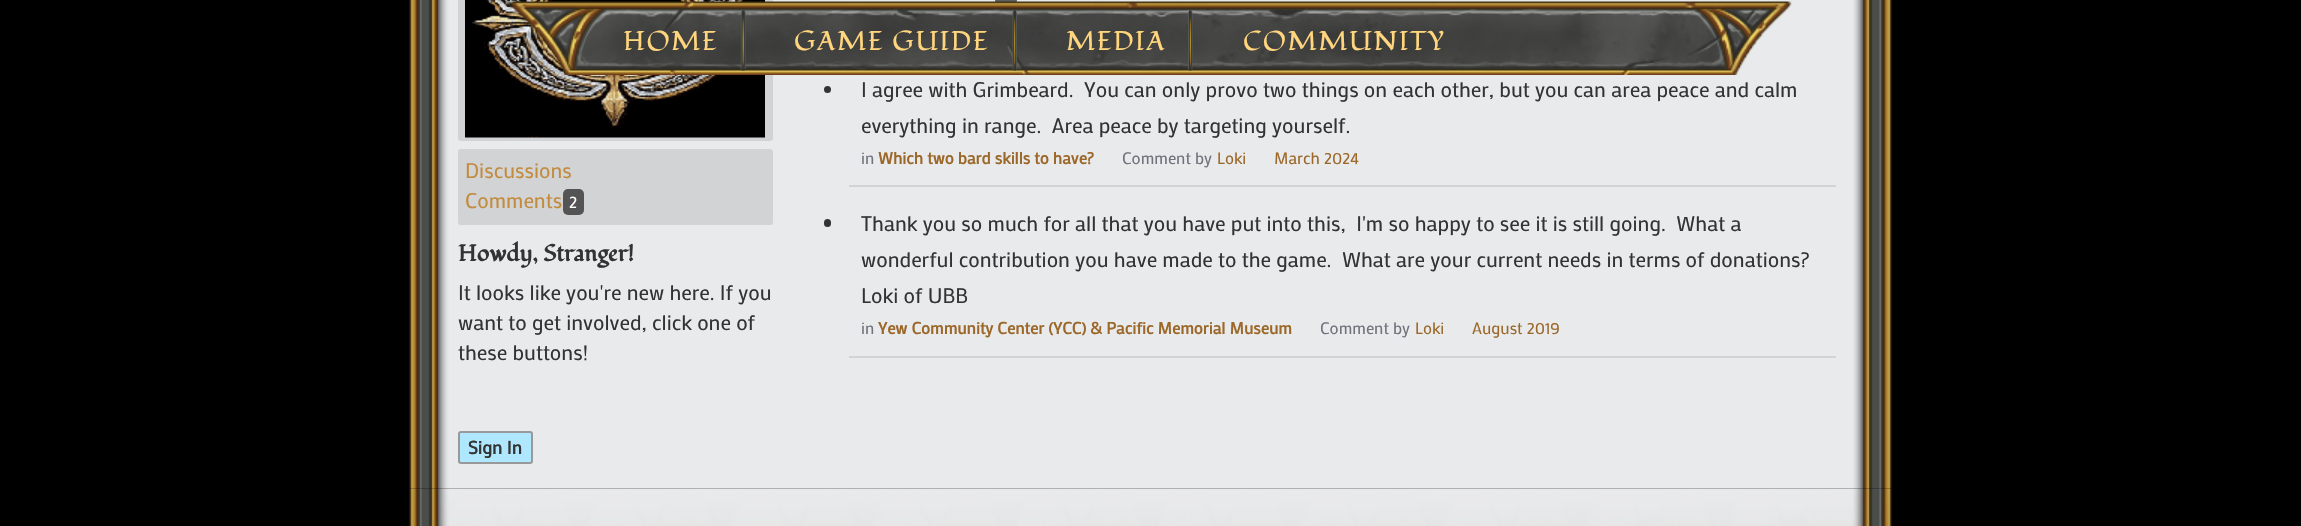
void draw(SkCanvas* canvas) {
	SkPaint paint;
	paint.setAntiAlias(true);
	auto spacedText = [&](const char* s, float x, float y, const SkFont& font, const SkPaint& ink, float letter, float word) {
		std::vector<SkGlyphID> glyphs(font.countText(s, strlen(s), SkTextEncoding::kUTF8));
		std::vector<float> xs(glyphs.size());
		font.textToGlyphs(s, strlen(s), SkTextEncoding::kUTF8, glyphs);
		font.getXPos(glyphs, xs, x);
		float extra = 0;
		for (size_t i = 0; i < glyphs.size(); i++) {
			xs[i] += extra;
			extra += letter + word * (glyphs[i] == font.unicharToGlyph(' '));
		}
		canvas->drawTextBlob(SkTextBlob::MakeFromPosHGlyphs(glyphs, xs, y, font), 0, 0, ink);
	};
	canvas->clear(0xff000000);
	canvas->drawImageRect(SkImages::DeferredFromEncodedData(SkData::MakeFromFileName("img5.png")), SkRect::MakeXYWH(409, 0, 1483, 489), SkSamplingOptions());
	paint.setColor(0xffd2d3d4);
	canvas->drawRoundRect(SkRect::MakeXYWH(458, -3, 315, 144), 3, 3, paint);
	canvas->drawImageRect(SkImages::DeferredFromEncodedData(SkData::MakeFromFileName("img6.png")), SkRect::MakeXYWH(465, 0, 300, 138), SkSamplingOptions());
	paint.setColor(0xff5d5e5e);
	canvas->drawRoundRect(SkRect::MakeXYWH(995, -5, 22, 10), 5, 5, paint);
	canvas->drawImageRect(SkImages::DeferredFromEncodedData(SkData::MakeFromFileName("img1.png")), SkRect::MakeXYWH(510, 0, 1282, 75), SkSamplingOptions());
	canvas->drawImageRect(SkImages::DeferredFromEncodedData(SkData::MakeFromFileName("img2.png")), SkRect::MakeXYWH(740, 10, 6, 61), SkSamplingOptions());
	SkFont f1(fontMgr->matchFamilyStyle("Fondamento", SkFontStyle::Normal()), 27);
	f1.setSubpixel(true);
	paint.setColor(0xffffd57e);
	spacedText("HOME", 623, 50, f1, paint, 1.5, 0);
	canvas->drawImageRect(SkImages::DeferredFromEncodedData(SkData::MakeFromFileName("img3.png")), SkRect::MakeXYWH(1012, 10, 5, 61), SkSamplingOptions());
	spacedText("GAME GUIDE", 794, 50, f1, paint, 1.5, 0);
	canvas->drawImageRect(SkImages::DeferredFromEncodedData(SkData::MakeFromFileName("img4.png")), SkRect::MakeXYWH(1188, 10, 5, 61), SkSamplingOptions());
	spacedText("MEDIA", 1066, 50, f1, paint, 1.5, 0);
	spacedText("COMMUNITY", 1243, 50, f1, paint, 1.5, 0);
	paint.setColor(0xffd2d3d4);
	canvas->drawRoundRect(SkRect::MakeXYWH(458, 149, 315, 76), 3, 3, paint);
	SkFont f2(fontMgr->matchFamilyStyle("Mako", SkFontStyle::Normal()), 21);
	f2.setSubpixel(true);
	paint.setColor(0xffc28b3e);
	canvas->drawString("Discussions", 465, 178, f2, paint);
	canvas->drawString("Comments", 465, 208, f2, paint);
	paint.setColor(0xff545455);
	canvas->drawRoundRect(SkRect::MakeXYWH(563, 189, 21, 26), 5, 5, paint);
	SkFont f3(fontMgr->matchFamilyStyle("Mako", SkFontStyle::Normal()), 17);
	f3.setSubpixel(true);
	paint.setColor(0xffffffff);
	canvas->drawString("2", 569, 208, f3, paint);
	SkFont f4(fontMgr->matchFamilyStyle("Fondamento", SkFontStyle::Bold()), 23);
	f4.setSubpixel(true);
	paint.setColor(0xff333333);
	canvas->drawString("Howdy, Stranger!", 458, 261, f4, paint);
	canvas->drawString("It looks like you're new here. If you", 458, 300, f2, paint);
	canvas->drawString("want to get involved, click one of", 458, 330, f2, paint);
	canvas->drawString("these buttons!", 458, 360, f2, paint);
	paint.setColor(0xffaee7fe);
	canvas->drawRoundRect(SkRect::MakeXYWH(459, 432, 73, 31), 2, 2, paint);
	paint.setStroke(true);
	paint.setStrokeWidth(2);
	paint.setColor(0xff999999);
	canvas->drawRoundRect(SkRect::MakeXYWH(459, 432, 73, 31), 2, 2, paint);
	SkFont f5(fontMgr->matchFamilyStyle("Mako", SkFontStyle::Bold()), 18);
	f5.setSubpixel(true);
	paint.setStroke(false);
	paint.setColor(0xff333333);
	canvas->drawString("Sign In", 468, 454, f5, paint);
	paint.setColor(0xffd2d3d4);
	canvas->drawRect(SkRect::MakeXYWH(849, 185, 987, 2), paint);
	paint.setColor(0xff333333);
	canvas->drawCircle(827.5, 89.5, 3.5, paint);
	canvas->drawString("I agree with Grimbeard.  You can only provo two things on each other, but you can area peace and calm", 861, 97, f2, paint);
	canvas->drawString("everything in range.  Area peace by targeting yourself.", 861, 133, f2, paint);
	SkFont f6(fontMgr->matchFamilyStyle("Mako", SkFontStyle::Normal()), 16.5);
	f6.setSubpixel(true);
	paint.setColor(0xff70727c);
	canvas->drawString("in", 861, 164, f6, paint);
	SkFont f7(fontMgr->matchFamilyStyle("Mako", SkFontStyle::Bold()), 16.5);
	f7.setSubpixel(true);
	paint.setColor(0xff9c682a);
	canvas->drawString("Which two bard skills to have?", 878, 164, f7, paint);
	paint.setColor(0xff70727c);
	canvas->drawString("Comment by", 1122, 164, f6, paint);
	paint.setColor(0xff9c682a);
	canvas->drawString("Loki", 1217, 164, f6, paint);
	canvas->drawString("March 2024", 1274, 164, f6, paint);
	paint.setColor(0xffd2d3d4);
	canvas->drawRect(SkRect::MakeXYWH(849, 356, 987, 2), paint);
	paint.setColor(0xff333333);
	canvas->drawRoundRect(SkRect::MakeXYWH(824, 219, 7, 8), 3.5, 3.5, paint);
	canvas->drawString("Thank you so much for all that you have put into this,  I'm so happy to see it is still going.  What a", 861, 231, f2, paint);
	canvas->drawString("wonderful contribution you have made to the game.  What are your current needs in terms of donations?", 861, 267, f2, paint);
	canvas->drawString("Loki of UBB", 861, 303, f2, paint);
	paint.setColor(0xff70727c);
	canvas->drawString("in", 861, 334, f6, paint);
	paint.setColor(0xff9c682a);
	canvas->drawString("Yew Community Center (YCC) & Pacific Memorial Museum", 878, 334, f7, paint);
	paint.setColor(0xff70727c);
	canvas->drawString("Comment by", 1320, 334, f6, paint);
	paint.setColor(0xff9c682a);
	canvas->drawString("Loki", 1415, 334, f6, paint);
	canvas->drawString("August 2019", 1472, 334, f6, paint);
	canvas->drawImageRect(SkImages::DeferredFromEncodedData(SkData::MakeFromFileName("img7.png")), SkRect::MakeXYWH(409, 488, 1483, 38), SkSamplingOptions());
}
